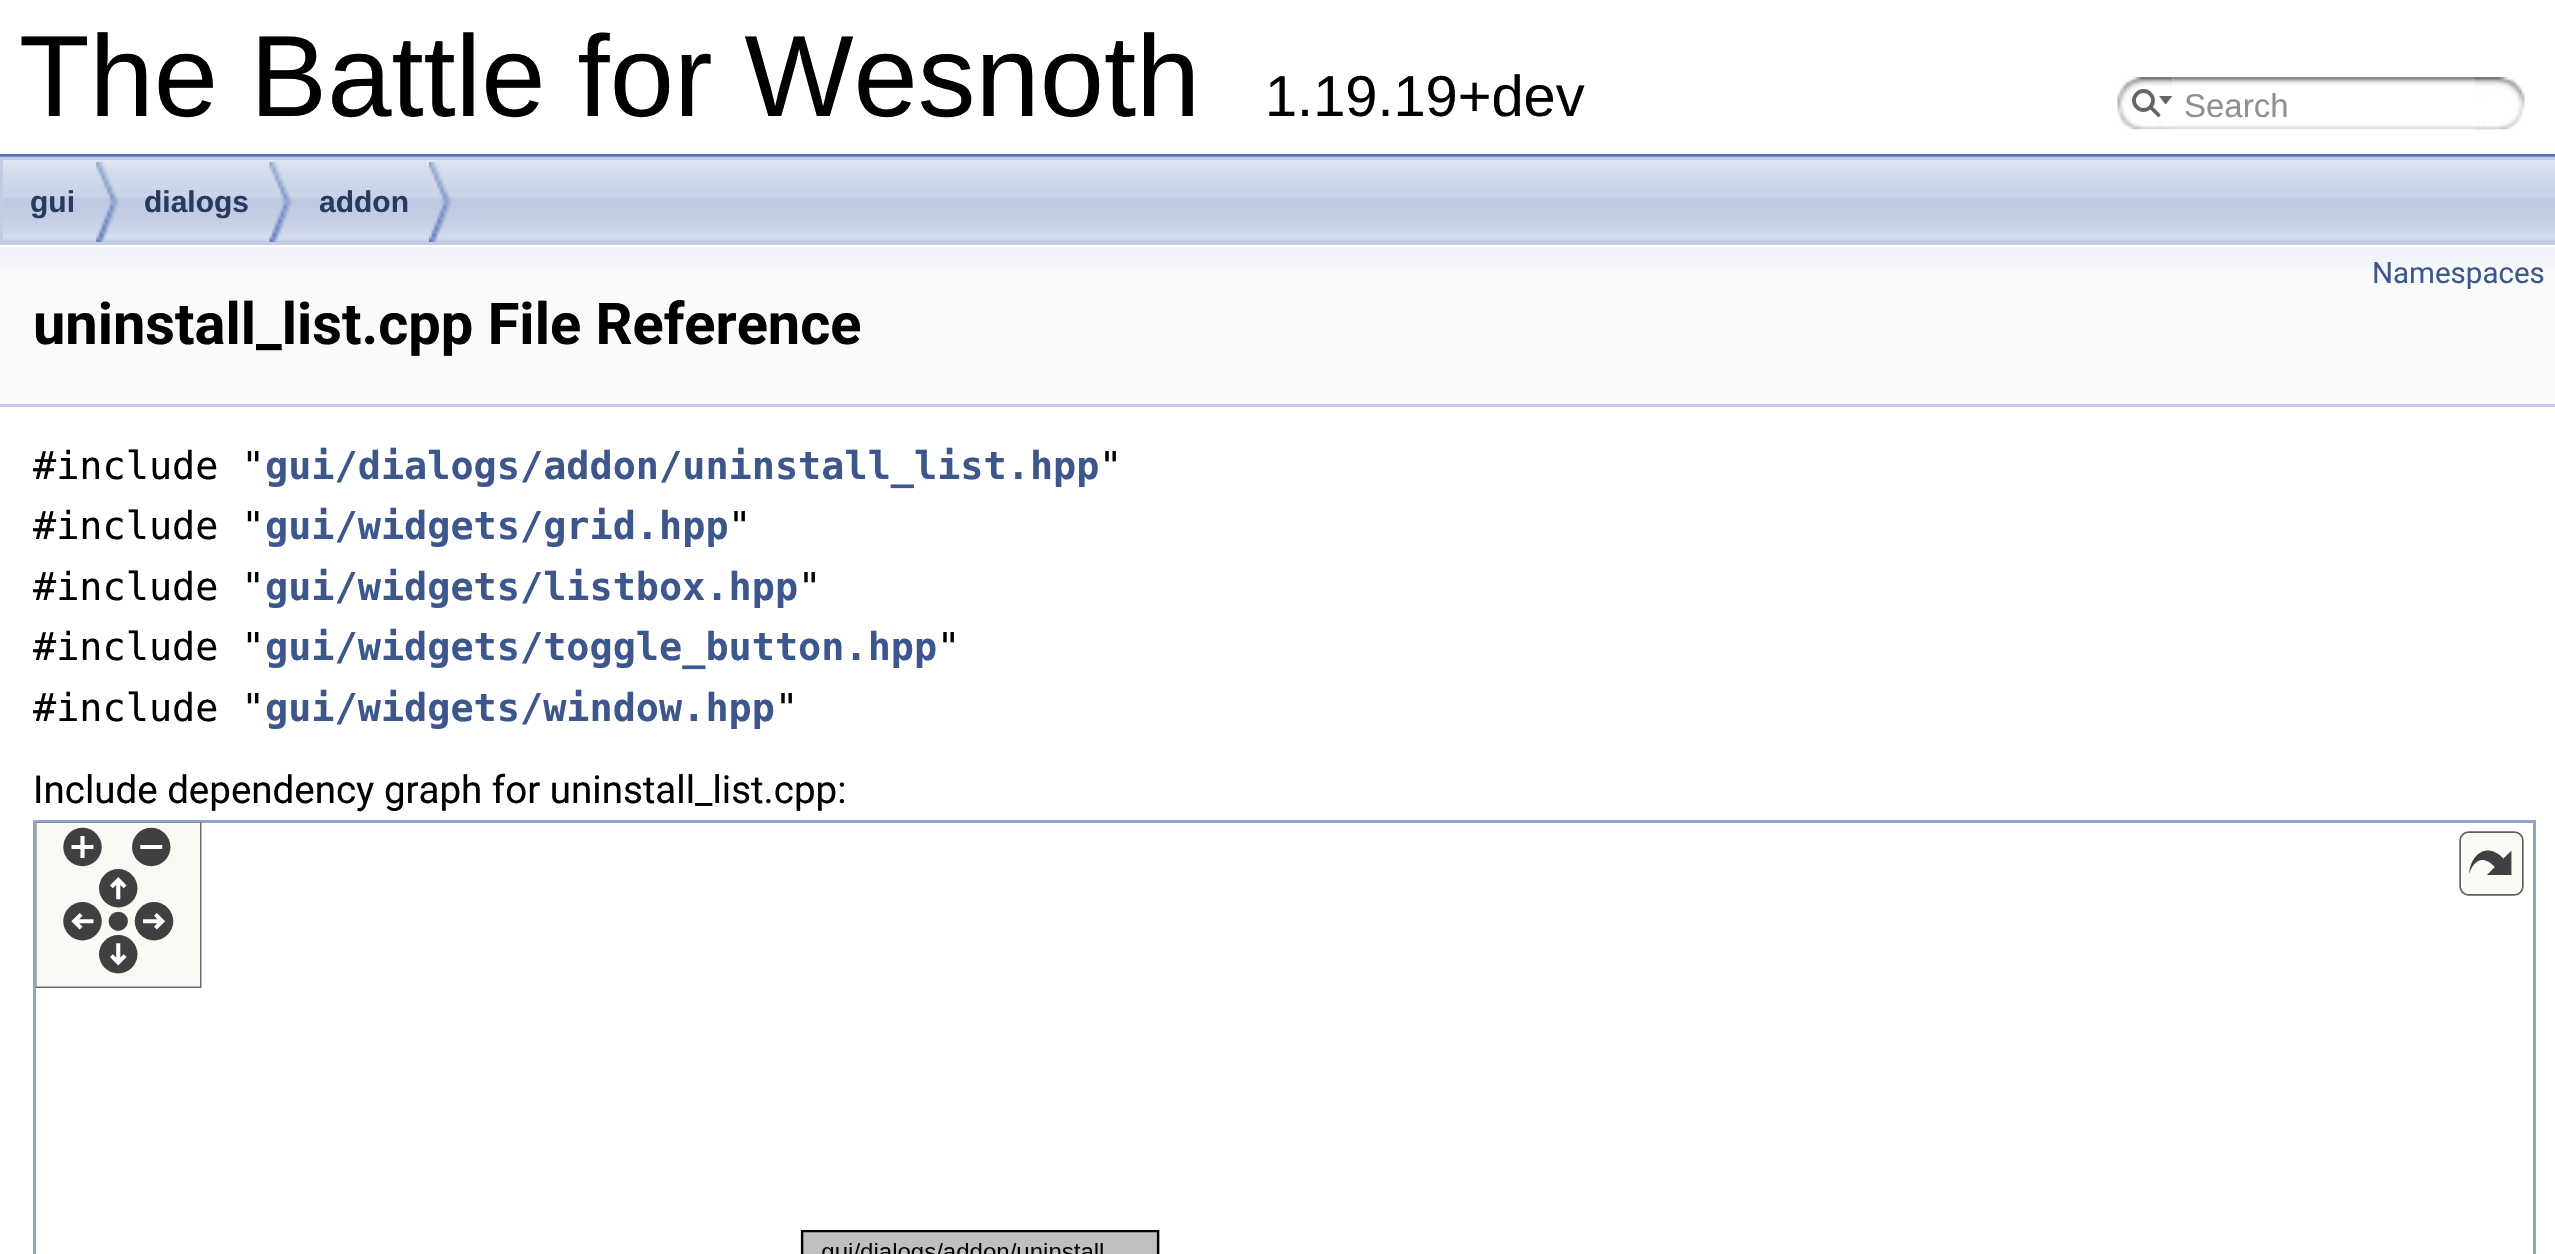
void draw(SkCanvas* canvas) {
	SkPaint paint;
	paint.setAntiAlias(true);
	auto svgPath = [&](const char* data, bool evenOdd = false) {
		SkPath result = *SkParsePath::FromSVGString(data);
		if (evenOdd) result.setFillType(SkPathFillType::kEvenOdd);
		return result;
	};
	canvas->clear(0xffffffff);
	paint.setColor(0xff5373b4);
	canvas->drawRect(SkRect::MakeXYWH(0, 154, 2555, 3), paint);
	SkFont f1(fontMgr->matchFamilyStyle("Liberation Sans", SkFontStyle::Normal()), 115.5);
	f1.setSubpixel(true);
	paint.setColor(0xff000000);
	canvas->drawString("The Battle for Wesnoth", 19, 116, f1, paint);
	SkFont f2(fontMgr->matchFamilyStyle("Liberation Sans", SkFontStyle::Normal()), 57.75);
	f2.setSubpixel(true);
	canvas->drawString("1.19.19+dev", 1265, 116, f2, paint);
	canvas->drawImageRect(SkImages::DeferredFromEncodedData(SkData::MakeFromFileName("img1.png")), SkRect::MakeXYWH(2117, 77, 56, 53), SkSamplingOptions());
	paint.setStroke(true);
	paint.setStrokeWidth(3.8);
	paint.setColor(0xff656565);
	canvas->drawCircle(2143.5, 100.5, 9.5, paint);
	paint.setStroke(false);
	canvas->drawPath(svgPath("M2159 96L2165.5 104.5L2172.5 96Z"), paint);
	paint.setStroke(true);
	paint.setStrokeCap(SkPaint::kRound_Cap);
	canvas->drawPath(svgPath("M2151 107.5L2158.5 115"), paint);
	canvas->drawImageRect(SkImages::DeferredFromEncodedData(SkData::MakeFromFileName("img2.png")), SkRect::MakeXYWH(2172, 77, 323, 53), SkSamplingOptions());
	SkFont f3(fontMgr->matchFamilyStyle("Liberation Sans", SkFontStyle::Normal()), 33);
	f3.setSubpixel(true);
	paint.setStroke(false);
	paint.setColor(0xff909090);
	canvas->drawString("Search", 2184, 117, f3, paint);
	canvas->drawImageRect(SkImages::DeferredFromEncodedData(SkData::MakeFromFileName("img3.png")), SkRect::MakeXYWH(2475, 77, 50, 53), SkSamplingOptions());
	canvas->drawImageRect(SkImages::DeferredFromEncodedData(SkData::MakeFromFileName("img4.png")), SkRect::MakeXYWH(0, 156, 2555, 86), SkSamplingOptions());
	paint.setStroke(true);
	paint.setStrokeWidth(3);
	paint.setStrokeCap(SkPaint::kButt_Cap);
	paint.setColor(0xffc2cde4);
	canvas->drawRect(SkRect::MakeXYWH(1.5, 158.5, 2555, 85), paint);
	canvas->drawImageRect(SkImages::DeferredFromEncodedData(SkData::MakeFromFileName("img5.png")), SkRect::MakeXYWH(96, 162, 23, 80), SkSamplingOptions());
	SkFont f4(fontMgr->matchFamilyStyle("Liberation Sans", SkFontStyle::Bold()), 30);
	f4.setSubpixel(true);
	paint.setStroke(false);
	paint.setColor(0xff283a5d);
	canvas->drawString("gui", 30, 212, f4, paint);
	canvas->drawImageRect(SkImages::DeferredFromEncodedData(SkData::MakeFromFileName("img6.png")), SkRect::MakeXYWH(269, 162, 23, 80), SkSamplingOptions());
	canvas->drawString("dialogs", 144, 212, f4, paint);
	canvas->drawImageRect(SkImages::DeferredFromEncodedData(SkData::MakeFromFileName("img7.png")), SkRect::MakeXYWH(429, 162, 22, 80), SkSamplingOptions());
	canvas->drawString("addon", 319, 212, f4, paint);
	paint.setColor(0xfff9fafc);
	canvas->drawRect(SkRect::MakeXYWH(0, 267, 2555, 137), paint);
	canvas->drawImageRect(SkImages::DeferredFromEncodedData(SkData::MakeFromFileName("img8.png")), SkRect::MakeXYWH(0, 245, 2555, 22), SkSamplingOptions());
	paint.setColor(0xffc4cfe5);
	canvas->drawRect(SkRect::MakeXYWH(0, 404, 2555, 3), paint);
	SkFont f5(fontMgr->matchFamilyStyle("Roboto", SkFontStyle::Normal()), 29.5);
	f5.setSubpixel(true);
	paint.setColor(0xff3d578c);
	canvas->drawString("Namespaces", 2372, 283, f5, paint);
	SkFont f6(fontMgr->matchFamilyStyle("Roboto", SkFontStyle::Bold()), 57.75);
	f6.setSubpixel(true);
	paint.setColor(0xff000000);
	canvas->drawString("uninstall_list.cpp File Reference", 33, 344, f6, paint);
	SkFont f7(fontMgr->matchFamilyStyle("DejaVu Sans Mono", SkFontStyle::Normal()), 38.5);
	f7.setSubpixel(true);
	canvas->drawString("#include \"", 33, 479, f7, paint);
	SkFont f8(fontMgr->matchFamilyStyle("DejaVu Sans Mono", SkFontStyle::Bold()), 38.5);
	f8.setSubpixel(true);
	paint.setColor(0xff3d578c);
	canvas->drawString("gui/dialogs/addon/uninstall_list.hpp", 265, 479, f8, paint);
	paint.setColor(0xff000000);
	canvas->drawString("\"", 1099, 479, f7, paint);
	canvas->drawString("#include \"", 33, 539, f7, paint);
	paint.setColor(0xff3d578c);
	canvas->drawString("gui/widgets/grid.hpp", 265, 539, f8, paint);
	paint.setColor(0xff000000);
	canvas->drawString("\"", 728, 539, f7, paint);
	canvas->drawString("#include \"", 33, 600, f7, paint);
	paint.setColor(0xff3d578c);
	canvas->drawString("gui/widgets/listbox.hpp", 265, 600, f8, paint);
	paint.setColor(0xff000000);
	canvas->drawString("\"", 798, 600, f7, paint);
	canvas->drawString("#include \"", 33, 660, f7, paint);
	paint.setColor(0xff3d578c);
	canvas->drawString("gui/widgets/toggle_button.hpp", 265, 660, f8, paint);
	paint.setColor(0xff000000);
	canvas->drawString("\"", 937, 660, f7, paint);
	canvas->drawString("#include \"", 33, 721, f7, paint);
	paint.setColor(0xff3d578c);
	canvas->drawString("gui/widgets/window.hpp", 265, 721, f8, paint);
	paint.setColor(0xff000000);
	canvas->drawString("\"", 775, 721, f7, paint);
	SkFont f9(fontMgr->matchFamilyStyle("Roboto", SkFontStyle::Normal()), 38.5);
	f9.setSubpixel(true);
	canvas->drawString("Include dependency graph for uninstall_list.cpp:", 33, 803, f9, paint);
	paint.setStroke(true);
	paint.setColor(0xff90a5ce);
	canvas->drawRect(SkRect::MakeXYWH(34.5, 821.5, 2500, 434), paint);
	canvas->drawImageRect(SkImages::DeferredFromEncodedData(SkData::MakeFromFileName("img9.png")), SkRect::MakeXYWH(35, 822, 2489, 432), SkSamplingOptions());
}
